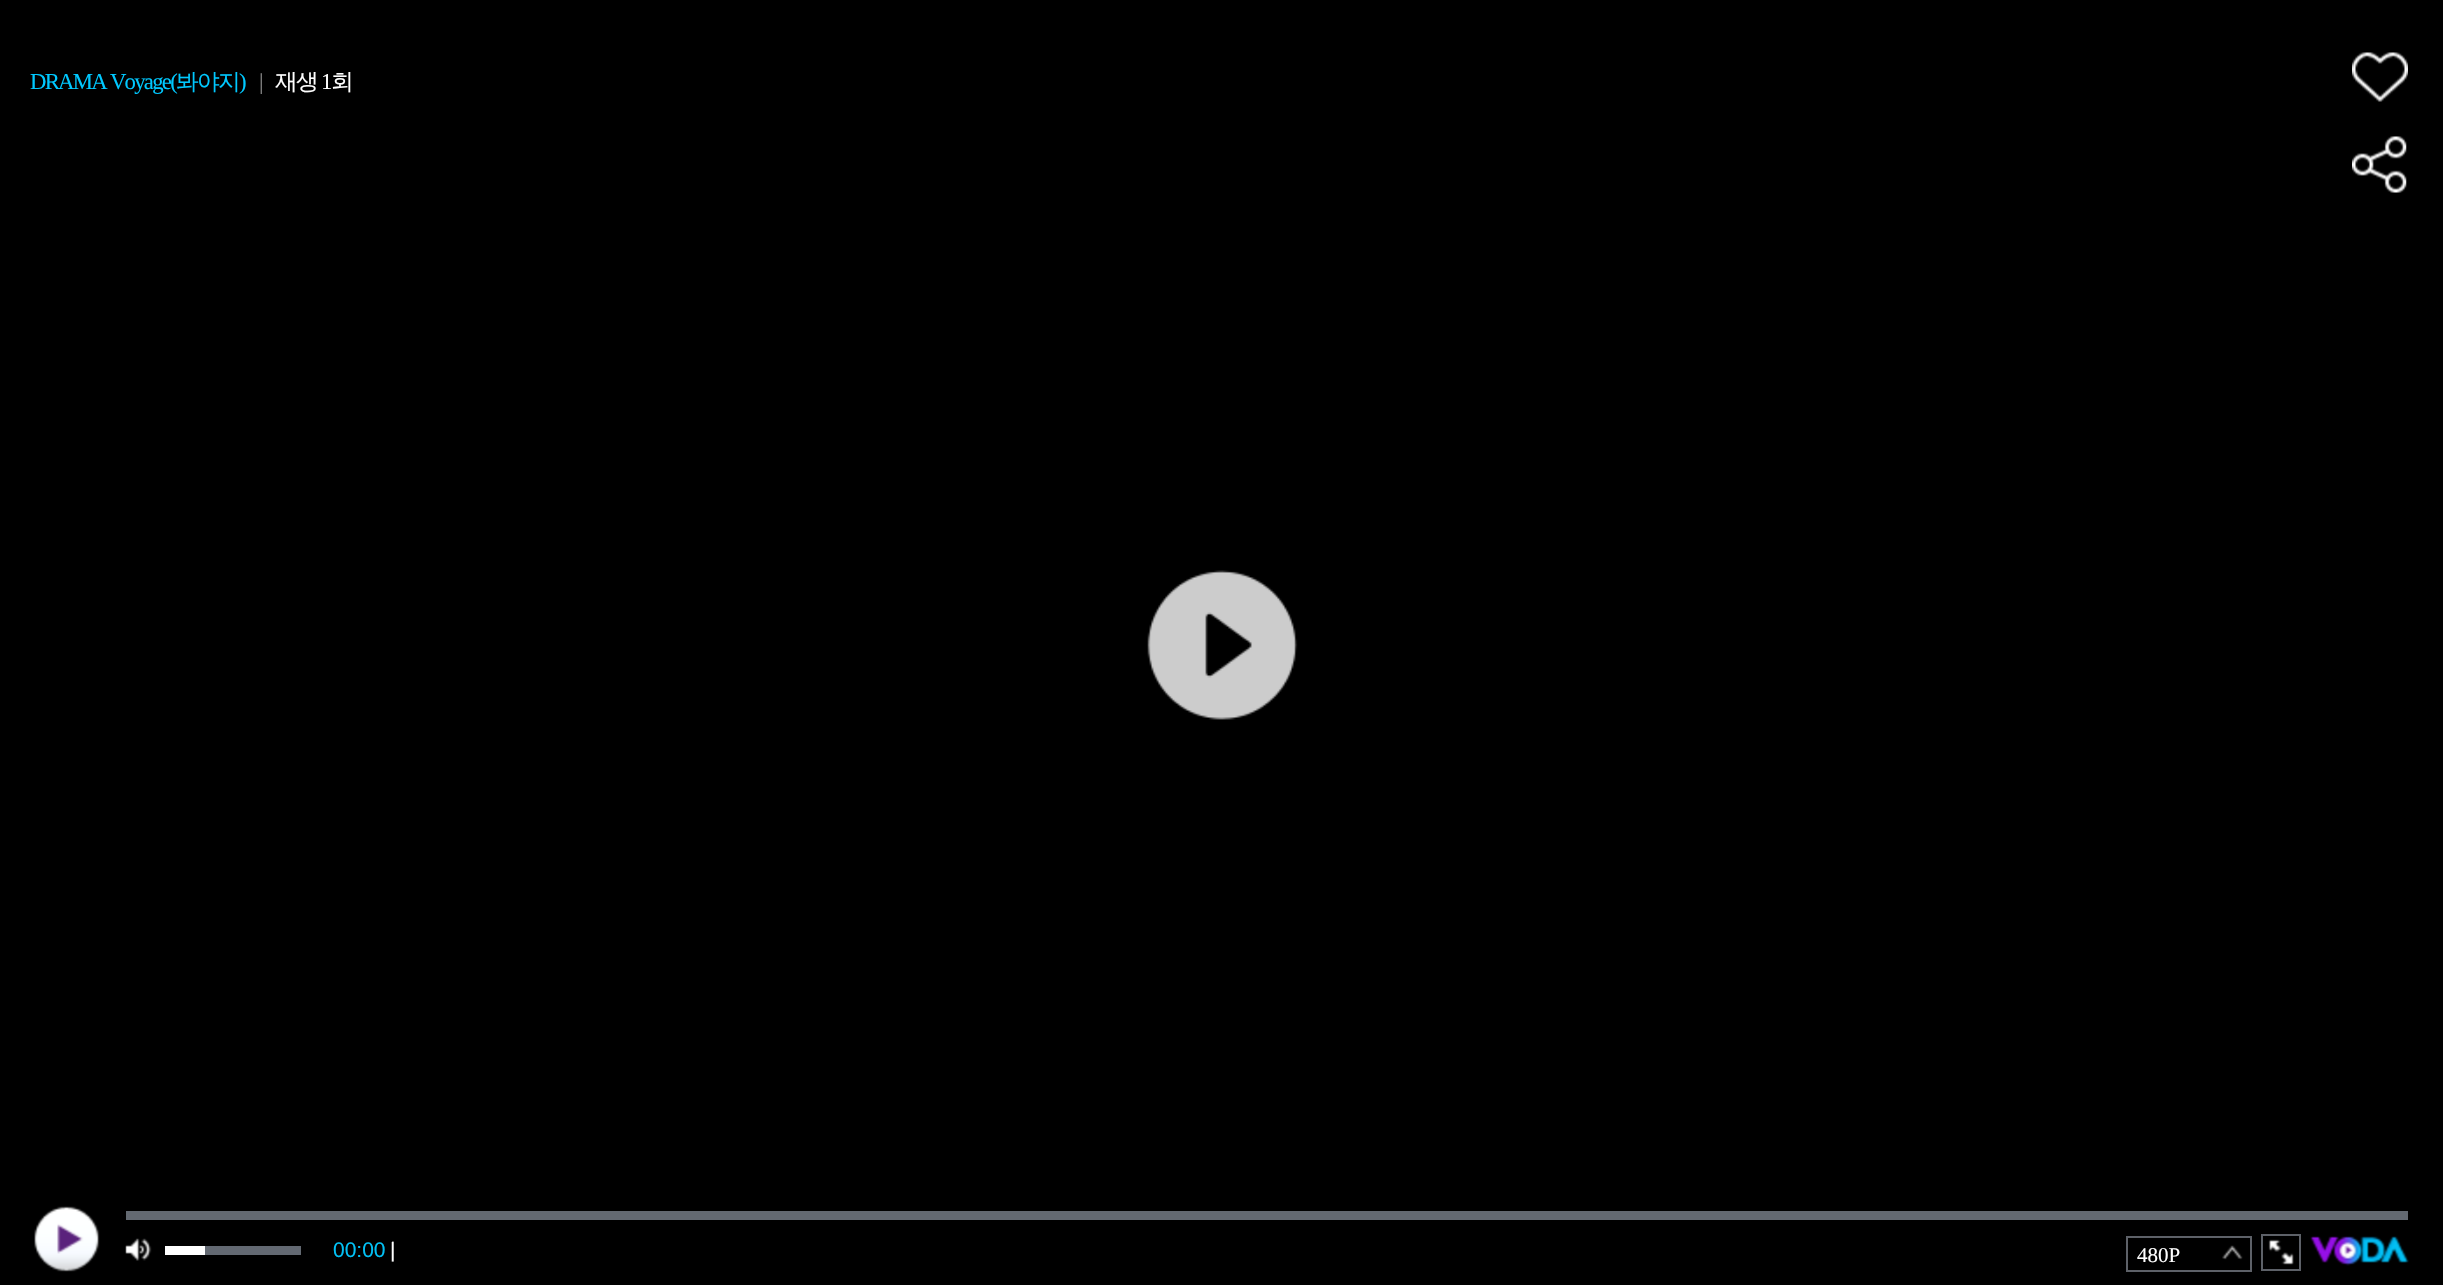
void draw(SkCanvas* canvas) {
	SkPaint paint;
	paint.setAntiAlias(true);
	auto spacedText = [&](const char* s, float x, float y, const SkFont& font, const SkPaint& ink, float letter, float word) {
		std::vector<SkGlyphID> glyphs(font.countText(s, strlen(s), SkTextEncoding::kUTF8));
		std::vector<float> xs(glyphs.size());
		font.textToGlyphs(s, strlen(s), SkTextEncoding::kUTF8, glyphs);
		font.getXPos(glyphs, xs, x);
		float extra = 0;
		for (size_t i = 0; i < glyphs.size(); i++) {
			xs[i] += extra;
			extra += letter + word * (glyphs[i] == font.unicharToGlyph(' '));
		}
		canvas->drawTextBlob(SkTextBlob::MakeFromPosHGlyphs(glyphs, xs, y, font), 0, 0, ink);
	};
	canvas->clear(0xff000000);
	canvas->drawImageRect(SkImages::DeferredFromEncodedData(SkData::MakeFromFileName("img1.png")), SkRect::MakeXYWH(2352, 52, 56, 50), SkSamplingOptions());
	canvas->drawImageRect(SkImages::DeferredFromEncodedData(SkData::MakeFromFileName("img2.png")), SkRect::MakeXYWH(2352, 136, 55, 57), SkSamplingOptions());
	canvas->drawImageRect(SkImages::DeferredFromEncodedData(SkData::MakeFromFileName("img3.png")), SkRect::MakeXYWH(1147, 570, 151, 150), SkSamplingOptions());
	SkFont f1(fontMgr->matchFamilyStyle("Liberation Serif", SkFontStyle::Normal()), 22.75);
	f1.setSubpixel(true);
	paint.setColor(0xff00c8ff);
	spacedText("DRAMA Voyage(", 30, 89, f1, paint, -1.75, 0);
	SkFont f2(fontMgr->matchFamilyStyle("WenQuanYi Zen Hei", SkFontStyle(500, SkFontStyle::kNormal_Width, SkFontStyle::kUpright_Slant)), 22.75);
	f2.setSubpixel(true);
	spacedText("봐야지", 176, 89, f2, paint, -1.75, 0);
	spacedText(")", 239, 89, f1, paint, -1.75, 0);
	paint.setColor(0xff888888);
	spacedText("|", 259, 89, f1, paint, -1.75, 0);
	paint.setColor(0xffffffff);
	spacedText("재생", 275, 89, f2, paint, -1.75, 0);
	spacedText("1", 321, 89, f1, paint, -1.75, 0);
	spacedText("회", 331, 89, f2, paint, -1.75, 0);
	paint.setColor(0xff636971);
	canvas->drawRect(SkRect::MakeXYWH(126, 1211, 2282, 9), paint);
	SkFont f3(fontMgr->matchFamilyStyle("Liberation Sans", SkFontStyle::Normal()), 21);
	f3.setSubpixel(true);
	paint.setColor(0xff02c1f5);
	canvas->drawString("00:00", 333, 1257, f3, paint);
	paint.setColor(0xffffffff);
	canvas->drawString("|", 390, 1257, f3, paint);
	canvas->drawImageRect(SkImages::DeferredFromEncodedData(SkData::MakeFromFileName("img4.png")), SkRect::MakeXYWH(34, 1206, 66, 66), SkSamplingOptions());
	canvas->drawImageRect(SkImages::DeferredFromEncodedData(SkData::MakeFromFileName("img5.png")), SkRect::MakeXYWH(125, 1238, 27, 23), SkSamplingOptions());
	paint.setColor(0xff636972);
	canvas->drawRect(SkRect::MakeXYWH(205, 1246, 96, 9), paint);
	paint.setColor(0xffffffff);
	canvas->drawRect(SkRect::MakeXYWH(165, 1246, 40, 9), paint);
	paint.setStroke(true);
	paint.setStrokeWidth(2);
	paint.setColor(0xff5d6168);
	canvas->drawRect(SkRect::MakeXYWH(2127, 1237, 124, 34), paint);
	SkFont f4(fontMgr->matchFamilyStyle("Liberation Serif", SkFontStyle::Normal()), 21);
	f4.setSubpixel(true);
	paint.setStroke(false);
	paint.setColor(0xffffffff);
	canvas->drawString("480P", 2137, 1262, f4, paint);
	canvas->drawImageRect(SkImages::DeferredFromEncodedData(SkData::MakeFromFileName("img6.png")), SkRect::MakeXYWH(2222, 1245, 21, 15), SkSamplingOptions());
	canvas->drawImageRect(SkImages::DeferredFromEncodedData(SkData::MakeFromFileName("img7.png")), SkRect::MakeXYWH(2268, 1239, 26, 26), SkSamplingOptions());
	paint.setStroke(true);
	paint.setColor(0xff5d6168);
	canvas->drawRect(SkRect::MakeXYWH(2262, 1235, 38, 35), paint);
	canvas->drawImageRect(SkImages::DeferredFromEncodedData(SkData::MakeFromFileName("img8.png")), SkRect::MakeXYWH(2310, 1236, 99, 30), SkSamplingOptions());
}
